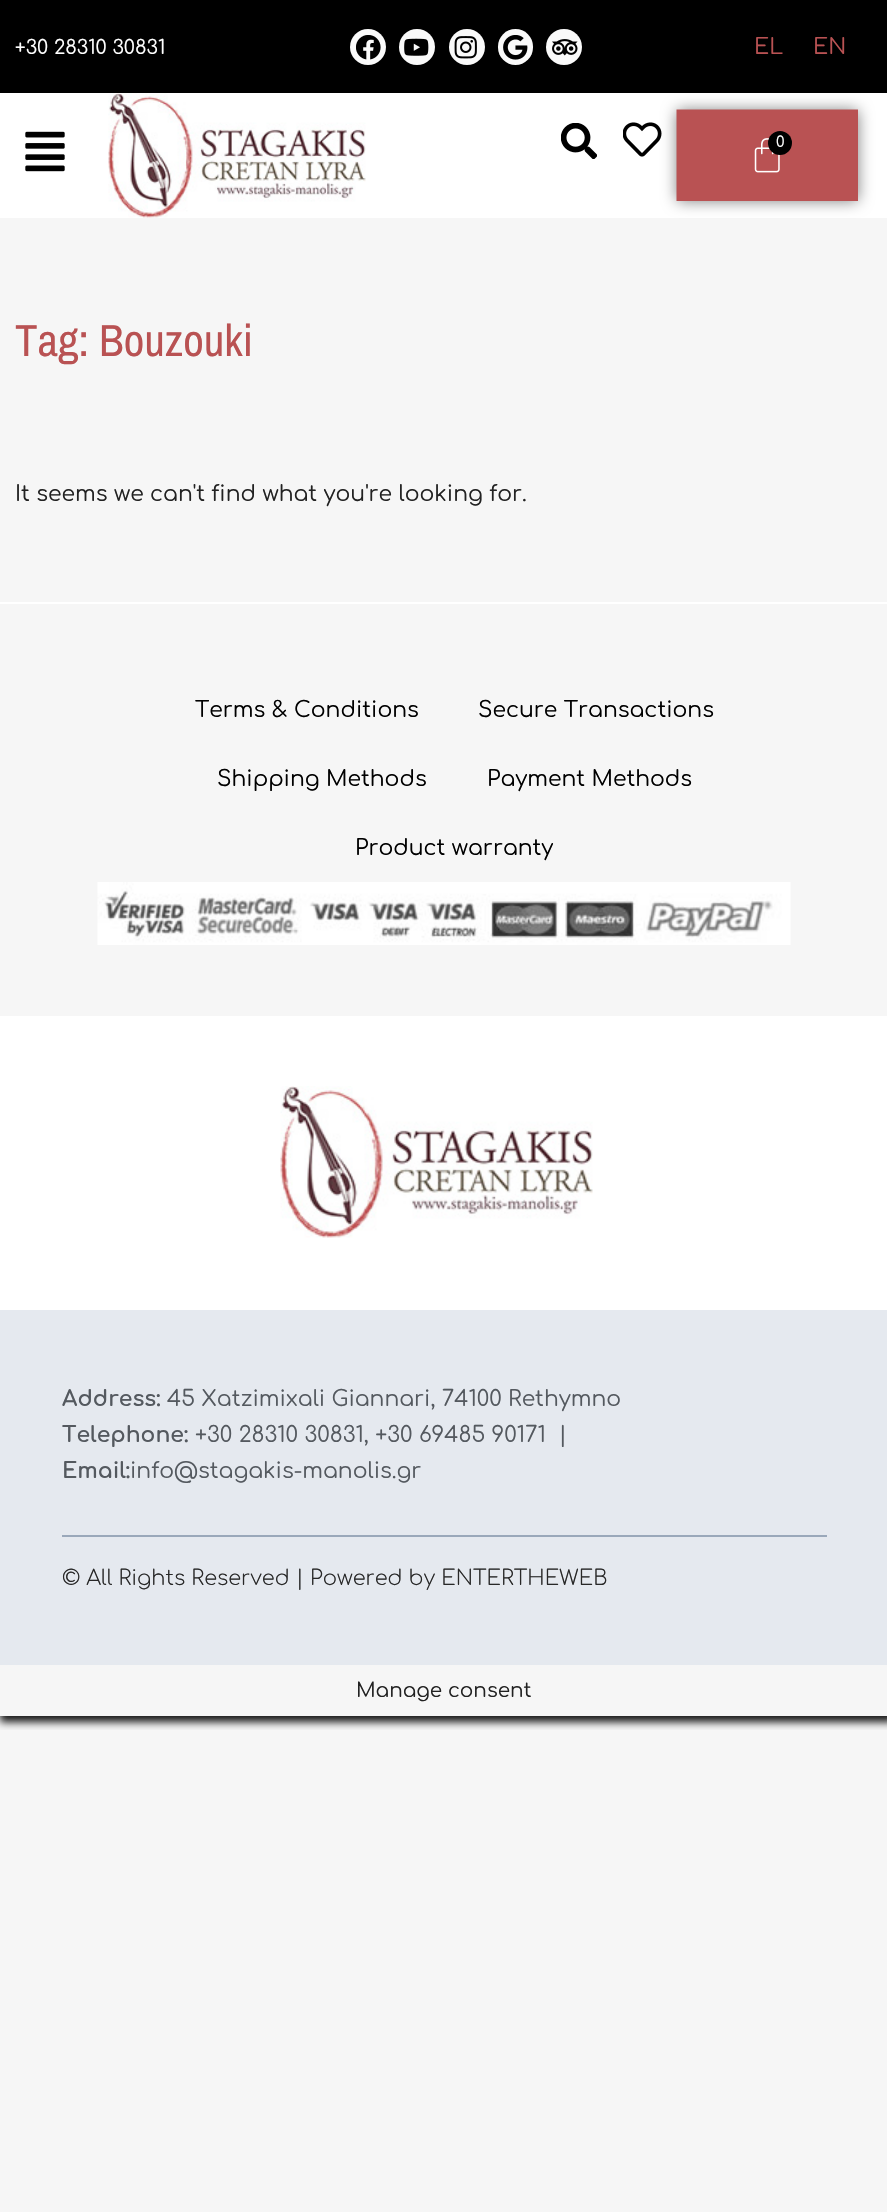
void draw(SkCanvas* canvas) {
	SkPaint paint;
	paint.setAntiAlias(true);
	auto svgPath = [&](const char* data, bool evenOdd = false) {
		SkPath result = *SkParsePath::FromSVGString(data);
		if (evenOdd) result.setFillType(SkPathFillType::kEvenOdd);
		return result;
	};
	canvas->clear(0xfff6f6f6);
	paint.setColor(0xff000000);
	canvas->drawRect(SkRect::MakeXYWH(0, 0, 887, 93), paint);
	SkFont f1(fontMgr->matchFamilyStyle("Comfortaa", SkFontStyle::Normal()), 19.5);
	f1.setSubpixel(true);
	paint.setColor(0xffffffff);
	canvas->drawString("+30 28310 30831", 15, 54, f1, paint);
	paint.setColor(0xfffafafa);
	canvas->drawCircle(368, 47, 18, paint);
	canvas->drawImageRect(SkImages::DeferredFromEncodedData(SkData::MakeFromFileName("img1.png")), SkRect::MakeXYWH(356, 35, 25, 25), SkSamplingOptions());
	canvas->drawCircle(417, 47, 18, paint);
	canvas->drawImageRect(SkImages::DeferredFromEncodedData(SkData::MakeFromFileName("img2.png")), SkRect::MakeXYWH(404, 38, 25, 18), SkSamplingOptions());
	canvas->drawCircle(467, 47, 18, paint);
	canvas->drawImageRect(SkImages::DeferredFromEncodedData(SkData::MakeFromFileName("img3.png")), SkRect::MakeXYWH(454, 36, 23, 23), SkSamplingOptions());
	canvas->drawRoundRect(SkRect::MakeXYWH(498, 29, 35, 36), 17.5, 17.5, paint);
	canvas->drawImageRect(SkImages::DeferredFromEncodedData(SkData::MakeFromFileName("img4.png")), SkRect::MakeXYWH(503, 35, 25, 25), SkSamplingOptions());
	canvas->drawCircle(564, 47, 18, paint);
	canvas->drawImageRect(SkImages::DeferredFromEncodedData(SkData::MakeFromFileName("img5.png")), SkRect::MakeXYWH(552, 39, 26, 17), SkSamplingOptions());
	SkFont f2(fontMgr->matchFamilyStyle("Comfortaa", SkFontStyle::Normal()), 21.9);
	f2.setSubpixel(true);
	paint.setColor(0xffb95253);
	canvas->drawString("EL", 754, 54, f2, paint);
	canvas->drawString("EN", 813, 54, f2, paint);
	paint.setColor(0xffffffff);
	canvas->drawRect(SkRect::MakeXYWH(0, 93, 887, 125), paint);
	canvas->drawImageRect(SkImages::DeferredFromEncodedData(SkData::MakeFromFileName("img6.png")), SkRect::MakeXYWH(25, 131, 40, 41), SkSamplingOptions());
	canvas->drawImageRect(SkImages::DeferredFromEncodedData(SkData::MakeFromFileName("img7.png")), SkRect::MakeXYWH(108, 93, 258, 125), SkSamplingOptions());
	canvas->drawImageRect(SkImages::DeferredFromEncodedData(SkData::MakeFromFileName("img8.png")), SkRect::MakeXYWH(561, 123, 36, 36), SkSamplingOptions());
	canvas->drawImageRect(SkImages::DeferredFromEncodedData(SkData::MakeFromFileName("img9.png")), SkRect::MakeXYWH(623, 122, 39, 35), SkSamplingOptions());
	paint.setColor(0x80000000);
	paint.setMaskFilter(SkMaskFilter::MakeBlur(kNormal_SkBlurStyle, 7.5));
	canvas->drawRoundRect(SkRect::MakeXYWH(677, 110, 181, 91), 3, 3, paint);
	paint.setMaskFilter(nullptr);
	paint.setColor(0xffb95253);
	canvas->drawRect(SkRect::MakeXYWH(688, 121, 158, 68), paint);
	paint.setStroke(true);
	paint.setStrokeWidth(12);
	canvas->drawPath(svgPath("M682.5 115.5H852V195H682.5Z"), paint);
	canvas->drawImageRect(SkImages::DeferredFromEncodedData(SkData::MakeFromFileName("img10.png")), SkRect::MakeXYWH(754, 138, 26, 35), SkSamplingOptions());
	paint.setStroke(false);
	paint.setColor(0xff000000);
	canvas->drawCircle(780, 143, 12, paint);
	SkFont f3(fontMgr->matchFamilyStyle("Comfortaa", SkFontStyle::Normal()), 15);
	f3.setSubpixel(true);
	paint.setColor(0xffffffff);
	canvas->drawString("0", 776, 147, f3, paint);
	SkFont f4(fontMgr->matchFamilyStyle("Archivo Narrow", SkFontStyle::Normal()), 45);
	f4.setSubpixel(true);
	paint.setColor(0xffb95253);
	canvas->drawString("Tag: Bouzouki", 15, 356, f4, paint);
	paint.setColor(0xff222222);
	canvas->drawString("It seems we can't find what you're looking for.", 15, 501, f2, paint);
	paint.setColor(0xffffffff);
	canvas->drawRect(SkRect::MakeXYWH(0, 602, 887, 2), paint);
	paint.setColor(0xff000000);
	canvas->drawString("Terms & Conditions", 195, 717, f2, paint);
	canvas->drawString("Secure Transactions", 478, 717, f2, paint);
	canvas->drawString("Shipping Methods", 217, 786, f2, paint);
	canvas->drawString("Payment Methods", 487, 786, f2, paint);
	canvas->drawString("Product warranty", 355, 855, f2, paint);
	canvas->drawImageRect(SkImages::DeferredFromEncodedData(SkData::MakeFromFileName("img11.png")), SkRect::MakeXYWH(97, 882, 694, 63), SkSamplingOptions());
	paint.setColor(0xffffffff);
	canvas->drawRect(SkRect::MakeXYWH(0, 1016, 887, 294), paint);
	canvas->drawImageRect(SkImages::DeferredFromEncodedData(SkData::MakeFromFileName("img12.png")), SkRect::MakeXYWH(280, 1086, 313, 152), SkSamplingOptions());
	canvas->save();
	canvas->clipRect(SkRect::MakeXYWH(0, 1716, 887, 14));
	paint.setColor(0xff161616);
	paint.setMaskFilter(SkMaskFilter::MakeBlur(kNormal_SkBlurStyle, 4));
	canvas->drawRect(SkRect::MakeXYWH(0, 1665, 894, 57), paint);
	paint.setMaskFilter(nullptr);
	canvas->restore();
	paint.setColor(0xffe5e9ef);
	canvas->drawRect(SkRect::MakeXYWH(0, 1310, 887, 355), paint);
	SkFont f5(fontMgr->matchFamilyStyle("Comfortaa", SkFontStyle::Bold()), 21.9);
	f5.setSubpixel(true);
	paint.setColor(0xff54595f);
	canvas->drawString("Address:", 62, 1406, f5, paint);
	canvas->drawString("45 Xatzimixali Giannari, 74100 Rethymno", 167, 1406, f2, paint);
	canvas->drawString("Telephone:", 62, 1442, f5, paint);
	canvas->drawString("+30 28310 30831, +30 69485 90171  |", 195, 1442, f2, paint);
	canvas->drawString("Email:", 62, 1478, f5, paint);
	canvas->drawString("info@stagakis-manolis.gr", 130, 1478, f2, paint);
	paint.setColor(0xff9aa8ba);
	canvas->drawRect(SkRect::MakeXYWH(62, 1535, 765, 2), paint);
	SkFont f6(fontMgr->matchFamilyStyle("Comfortaa", SkFontStyle(300, SkFontStyle::kNormal_Width, SkFontStyle::kUpright_Slant)), 21);
	f6.setSubpixel(true);
	paint.setColor(0xff282828);
	canvas->drawString("© All Rights Reserved | Powered by ENTERTHEWEB", 62, 1585, f6, paint);
	SkFont f7(fontMgr->matchFamilyStyle("Comfortaa", SkFontStyle::Normal()), 20);
	f7.setSubpixel(true);
	paint.setColor(0xff222222);
	canvas->drawString("Manage consent", 356, 1697, f7, paint);
}
